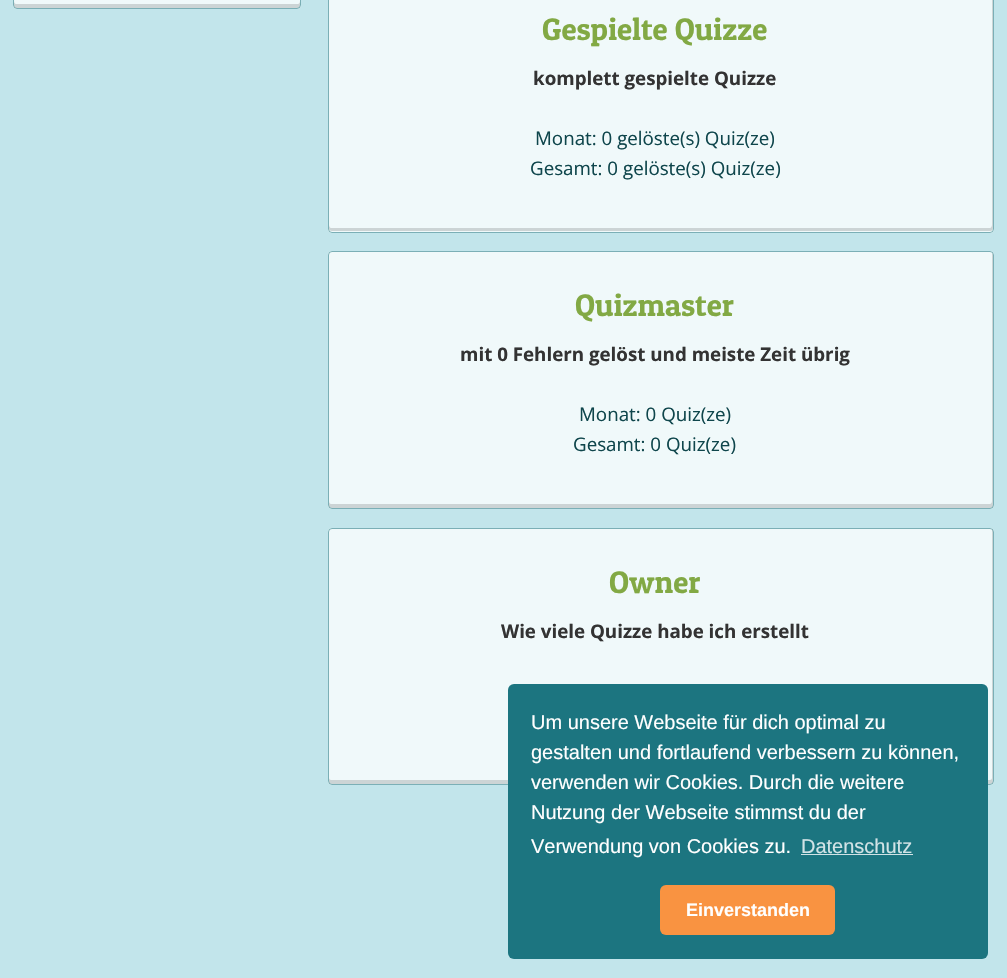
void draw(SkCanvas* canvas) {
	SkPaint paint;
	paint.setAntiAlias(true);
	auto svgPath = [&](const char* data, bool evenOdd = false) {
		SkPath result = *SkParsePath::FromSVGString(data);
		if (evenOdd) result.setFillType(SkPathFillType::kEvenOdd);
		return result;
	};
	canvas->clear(0xffc2e5eb);
	paint.setColor(0xfff0f9fa);
	canvas->drawRoundRect(SkRect::MakeXYWH(13, -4, 288, 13), 4, 4, paint);
	paint.setColor(0xffccd4d5);
	canvas->drawPath(svgPath("M14 1C14 3 13 7 16 8H298C301 8 300 3 300 1C300 3 299 4 298 4H16C15 4 14 3 14 1Z"), paint);
	paint.setStroke(true);
	paint.setStrokeWidth(1);
	paint.setColor(0x8c1c737e);
	canvas->drawRoundRect(SkRect::MakeXYWH(13.5, -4.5, 287, 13), 3.5, 3.5, paint);
	paint.setStroke(false);
	paint.setColor(0xfff0f9fa);
	canvas->drawRoundRect(SkRect::MakeXYWH(328, -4, 666, 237), 4, 4, paint);
	paint.setColor(0xffccd4d5);
	canvas->drawPath(svgPath("M329 225V228C329 230 330 231 332 231H990C992 231 993 230 993 228V-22C993-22 993-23 992-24V225C992 226 991 228 990 228H331C330 228 329 226 329 225Z"), paint);
	paint.setStroke(true);
	paint.setColor(0x8c1c737e);
	canvas->drawRoundRect(SkRect::MakeXYWH(328.5, -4.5, 665, 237), 3.5, 3.5, paint);
	SkFont f1(fontMgr->matchFamilyStyle("Patua One", SkFontStyle::Normal()), 31.25);
	f1.setSubpixel(true);
	paint.setStroke(false);
	paint.setColor(0xff82a944);
	canvas->drawString("Gespielte Quizze", 542, 40, f1, paint);
	SkFont f2(fontMgr->matchFamilyStyle("Open Sans", SkFontStyle::Bold()), 18.75);
	f2.setSubpixel(true);
	paint.setColor(0xff333333);
	canvas->drawString("komplett gespielte Quizze", 533, 85, f2, paint);
	SkFont f3(fontMgr->matchFamilyStyle("Open Sans", SkFontStyle::Normal()), 18.75);
	f3.setSubpixel(true);
	paint.setColor(0xff0f464c);
	canvas->drawString("Monat: 0 gelöste(s) Quiz(ze)", 535, 145, f3, paint);
	canvas->drawString("Gesamt: 0 gelöste(s) Quiz(ze)", 530, 175, f3, paint);
	paint.setColor(0xfff0f9fa);
	canvas->drawRoundRect(SkRect::MakeXYWH(328, 251, 666, 258), 4, 4, paint);
	paint.setColor(0xffccd4d5);
	canvas->drawPath(svgPath("M329 501V506C329 507 330 508 332 508H990C992 508 993 507 993 506V256C993 255 993 254 992 253V501C992 503 991 504 990 504H331C330 504 329 503 329 501Z"), paint);
	paint.setStroke(true);
	paint.setColor(0x8c1c737e);
	canvas->drawRoundRect(SkRect::MakeXYWH(328.5, 251.5, 665, 257), 3.5, 3.5, paint);
	paint.setStroke(false);
	paint.setColor(0xff82a944);
	canvas->drawString("Quizmaster", 575, 316, f1, paint);
	paint.setColor(0xff333333);
	canvas->drawString("mit 0 Fehlern gelöst und meiste Zeit übrig", 460, 361, f2, paint);
	paint.setColor(0xff0f464c);
	canvas->drawString("Monat: 0 Quiz(ze)", 579, 421, f3, paint);
	canvas->drawString("Gesamt: 0 Quiz(ze)", 573, 451, f3, paint);
	paint.setColor(0xfff0f9fa);
	canvas->drawRoundRect(SkRect::MakeXYWH(328, 528, 666, 257), 4, 4, paint);
	paint.setColor(0xffccd4d5);
	canvas->drawPath(svgPath("M329 778V782C329 783 330 784 332 784H990C992 784 993 783 993 782V532C993 531 993 530 992 529V778C992 779 991 780 990 780H331C330 780 329 779 329 778Z"), paint);
	paint.setStroke(true);
	paint.setColor(0x8c1c737e);
	canvas->drawRoundRect(SkRect::MakeXYWH(328.5, 528.5, 665, 256), 3.5, 3.5, paint);
	paint.setStroke(false);
	paint.setColor(0xff82a944);
	canvas->drawString("Owner", 609, 593, f1, paint);
	paint.setColor(0xff333333);
	canvas->drawString("Wie viele Quizze habe ich erstellt", 501, 638, f2, paint);
	paint.setColor(0xff1c7580);
	canvas->drawRoundRect(SkRect::MakeXYWH(508, 684, 480, 275), 6, 6, paint);
	SkFont f4(fontMgr->matchFamilyStyle("Liberation Sans", SkFontStyle::Normal()), 20);
	f4.setSubpixel(true);
	paint.setColor(0xffffffff);
	canvas->drawString("Um unsere Webseite für dich optimal zu", 531, 729, f4, paint);
	canvas->drawString("gestalten und fortlaufend verbessern zu können,", 531, 759, f4, paint);
	canvas->drawString("verwenden wir Cookies. Durch die weitere", 531, 789, f4, paint);
	canvas->drawString("Nutzung der Webseite stimmst du der", 531, 819, f4, paint);
	canvas->drawString("Verwendung von Cookies zu.", 531, 853, f4, paint);
	paint.setColor(0xffd2e3e6);
	canvas->drawString("Datenschutz", 801, 853, f4, paint);
	canvas->drawRect(SkRect::MakeXYWH(801, 854, 112, 1), paint);
	paint.setColor(0xfff99341);
	canvas->drawRoundRect(SkRect::MakeXYWH(660, 885, 175, 50), 6, 6, paint);
	SkFont f5(fontMgr->matchFamilyStyle("Liberation Sans", SkFontStyle::Bold()), 18);
	f5.setSubpixel(true);
	paint.setColor(0xffffffff);
	canvas->drawString("Einverstanden", 686, 916, f5, paint);
}
